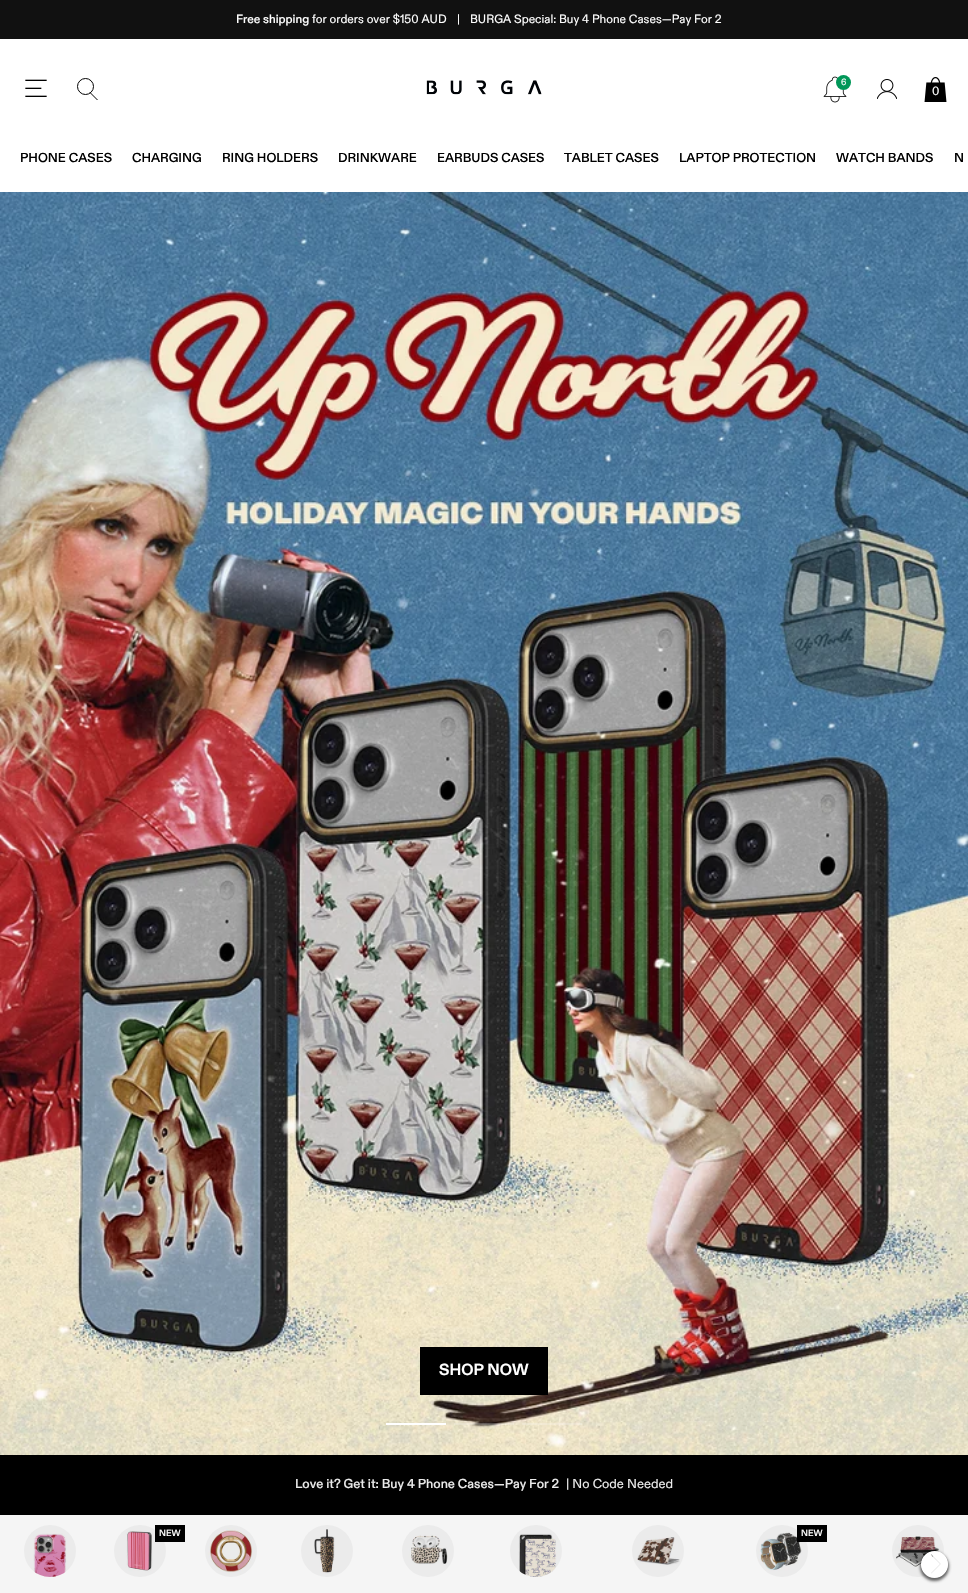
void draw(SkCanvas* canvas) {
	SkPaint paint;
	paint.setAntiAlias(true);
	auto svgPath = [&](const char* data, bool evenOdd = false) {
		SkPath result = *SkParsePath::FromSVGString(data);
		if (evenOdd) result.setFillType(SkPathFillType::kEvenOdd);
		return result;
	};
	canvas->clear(0xffffffff);
	paint.setColor(0xff111111);
	canvas->drawRect(SkRect::MakeXYWH(0, 0, 968, 39), paint);
	SkFont f1(fontMgr->matchFamilyStyle("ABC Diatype", SkFontStyle(500, SkFontStyle::kNormal_Width, SkFontStyle::kUpright_Slant)), 12);
	f1.setSubpixel(true);
	paint.setColor(0xffffffff);
	canvas->drawString("Free shipping", 236, 23, f1, paint);
	SkFont f2(fontMgr->matchFamilyStyle("ABC Diatype", SkFontStyle::Normal()), 12);
	f2.setSubpixel(true);
	canvas->drawString("for orders over $150 AUD", 312, 23, f2, paint);
	canvas->drawString("|", 457, 23, f2, paint);
	canvas->drawString("BURGA Special: Buy 4 Phone Cases—Pay For 2", 470, 23, f2, paint);
	canvas->drawImageRect(SkImages::DeferredFromEncodedData(SkData::MakeFromFileName("img1.png")), SkRect::MakeXYWH(25, 79, 22, 18), SkSamplingOptions());
	paint.setStroke(true);
	paint.setStrokeWidth(1);
	paint.setColor(0xff000000);
	canvas->drawCircle(85.5, 86.5, 8, paint);
	canvas->drawPath(svgPath("M90 92.5L97.5 100"), paint);
	canvas->drawImageRect(SkImages::DeferredFromEncodedData(SkData::MakeFromFileName("img2.png")), SkRect::MakeXYWH(426, 80, 116, 15), SkSamplingOptions());
	canvas->drawImageRect(SkImages::DeferredFromEncodedData(SkData::MakeFromFileName("img3.png")), SkRect::MakeXYWH(823, 76, 24, 27), SkSamplingOptions());
	paint.setStroke(false);
	paint.setColor(0xff009758);
	canvas->drawCircle(843.5, 82.5, 7.5, paint);
	SkFont f3(fontMgr->matchFamilyStyle("ABC Diatype", SkFontStyle::Normal()), 9);
	f3.setSubpixel(true);
	paint.setColor(0xffffffff);
	canvas->drawString("6", 841, 85, f3, paint);
	canvas->drawImageRect(SkImages::DeferredFromEncodedData(SkData::MakeFromFileName("img4.png")), SkRect::MakeXYWH(877, 79, 20, 20), SkSamplingOptions());
	canvas->drawImageRect(SkImages::DeferredFromEncodedData(SkData::MakeFromFileName("img5.png")), SkRect::MakeXYWH(924, 77, 23, 25), SkSamplingOptions());
	canvas->drawString("0", 932, 95, f2, paint);
	SkFont f4(fontMgr->matchFamilyStyle("ABC Diatype", SkFontStyle(500, SkFontStyle::kNormal_Width, SkFontStyle::kUpright_Slant)), 13);
	f4.setSubpixel(true);
	paint.setColor(0xff000000);
	canvas->drawString("PHONE CASES", 20, 162, f4, paint);
	canvas->drawString("CHARGING", 132, 162, f4, paint);
	canvas->drawString("RING HOLDERS", 222, 162, f4, paint);
	canvas->drawString("DRINKWARE", 338, 162, f4, paint);
	canvas->drawString("EARBUDS CASES", 437, 162, f4, paint);
	canvas->drawString("TABLET CASES", 564, 162, f4, paint);
	canvas->drawString("LAPTOP PROTECTION", 679, 162, f4, paint);
	canvas->drawString("WATCH BANDS", 836, 162, f4, paint);
	canvas->drawString("N", 954, 162, f4, paint);
	canvas->drawImageRect(SkImages::DeferredFromEncodedData(SkData::MakeFromFileName("img6.png")), SkRect::MakeXYWH(0, 192, 968, 1263), SkSamplingOptions());
	canvas->drawRect(SkRect::MakeXYWH(420, 1347, 128, 48), paint);
	SkFont f5(fontMgr->matchFamilyStyle("ABC Diatype", SkFontStyle::Bold()), 16);
	f5.setSubpixel(true);
	paint.setColor(0xffffffff);
	canvas->drawString("SHOP NOW", 439, 1375, f5, paint);
	canvas->drawRect(SkRect::MakeXYWH(386, 1423, 60, 2), paint);
	paint.setColor(0x33ffffff);
	canvas->drawRect(SkRect::MakeXYWH(454, 1423, 60, 2), paint);
	canvas->drawRect(SkRect::MakeXYWH(522, 1423, 60, 2), paint);
	paint.setColor(0xff000000);
	canvas->drawRect(SkRect::MakeXYWH(0, 1455, 968, 60), paint);
	paint.setColor(0xffeaeaea);
	canvas->drawString("Love it? Get it: Buy 4 Phone Cases—Pay For 2", 295, 1488, f4, paint);
	SkFont f6(fontMgr->matchFamilyStyle("ABC Diatype", SkFontStyle::Normal()), 13);
	f6.setSubpixel(true);
	canvas->drawString("| No Code Needed", 566, 1488, f6, paint);
	paint.setColor(0xfff5f5f5);
	canvas->drawRect(SkRect::MakeXYWH(0, 1515, 968, 78), paint);
	canvas->drawImageRect(SkImages::DeferredFromEncodedData(SkData::MakeFromFileName("img7.png")), SkRect::MakeXYWH(24, 1525, 52, 52), SkSamplingOptions());
	canvas->drawImageRect(SkImages::DeferredFromEncodedData(SkData::MakeFromFileName("img8.png")), SkRect::MakeXYWH(114, 1525, 52, 52), SkSamplingOptions());
	paint.setColor(0xff000000);
	canvas->drawRect(SkRect::MakeXYWH(155, 1525, 30, 17), paint);
	SkFont f7(fontMgr->matchFamilyStyle("ABC Diatype", SkFontStyle(500, SkFontStyle::kNormal_Width, SkFontStyle::kUpright_Slant)), 9);
	f7.setSubpixel(true);
	paint.setColor(0xffffffff);
	canvas->drawString("NEW", 159, 1536, f7, paint);
	canvas->drawImageRect(SkImages::DeferredFromEncodedData(SkData::MakeFromFileName("img9.png")), SkRect::MakeXYWH(205, 1525, 52, 52), SkSamplingOptions());
	canvas->drawImageRect(SkImages::DeferredFromEncodedData(SkData::MakeFromFileName("img10.png")), SkRect::MakeXYWH(301, 1525, 52, 52), SkSamplingOptions());
	canvas->drawImageRect(SkImages::DeferredFromEncodedData(SkData::MakeFromFileName("img11.png")), SkRect::MakeXYWH(402, 1525, 52, 52), SkSamplingOptions());
	canvas->drawImageRect(SkImages::DeferredFromEncodedData(SkData::MakeFromFileName("img12.png")), SkRect::MakeXYWH(510, 1525, 52, 52), SkSamplingOptions());
	canvas->drawImageRect(SkImages::DeferredFromEncodedData(SkData::MakeFromFileName("img13.png")), SkRect::MakeXYWH(632, 1525, 52, 52), SkSamplingOptions());
	canvas->drawImageRect(SkImages::DeferredFromEncodedData(SkData::MakeFromFileName("img14.png")), SkRect::MakeXYWH(756, 1525, 52, 52), SkSamplingOptions());
	paint.setColor(0xff000000);
	canvas->drawRect(SkRect::MakeXYWH(797, 1525, 30, 17), paint);
	paint.setColor(0xffffffff);
	canvas->drawString("NEW", 801, 1536, f7, paint);
	canvas->drawImageRect(SkImages::DeferredFromEncodedData(SkData::MakeFromFileName("img15.png")), SkRect::MakeXYWH(892, 1525, 52, 52), SkSamplingOptions());
	canvas->save();
	canvas->clipPath(svgPath("M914 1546H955V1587H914ZM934.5 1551C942 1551 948 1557 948 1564.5C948 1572 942 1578 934.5 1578C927 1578 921 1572 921 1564.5C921 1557 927 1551 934.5 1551Z", true), true);
	paint.setColor(0x99000000);
	paint.setMaskFilter(SkMaskFilter::MakeBlur(kNormal_SkBlurStyle, 1.5));
	canvas->drawRoundRect(SkRect::MakeXYWH(920, 1552, 29, 29), 14.5, 14.5, paint);
	paint.setMaskFilter(nullptr);
	canvas->restore();
	canvas->drawImageRect(SkImages::DeferredFromEncodedData(SkData::MakeFromFileName("img16.png")), SkRect::MakeXYWH(921, 1551, 27, 27), SkSamplingOptions());
}
